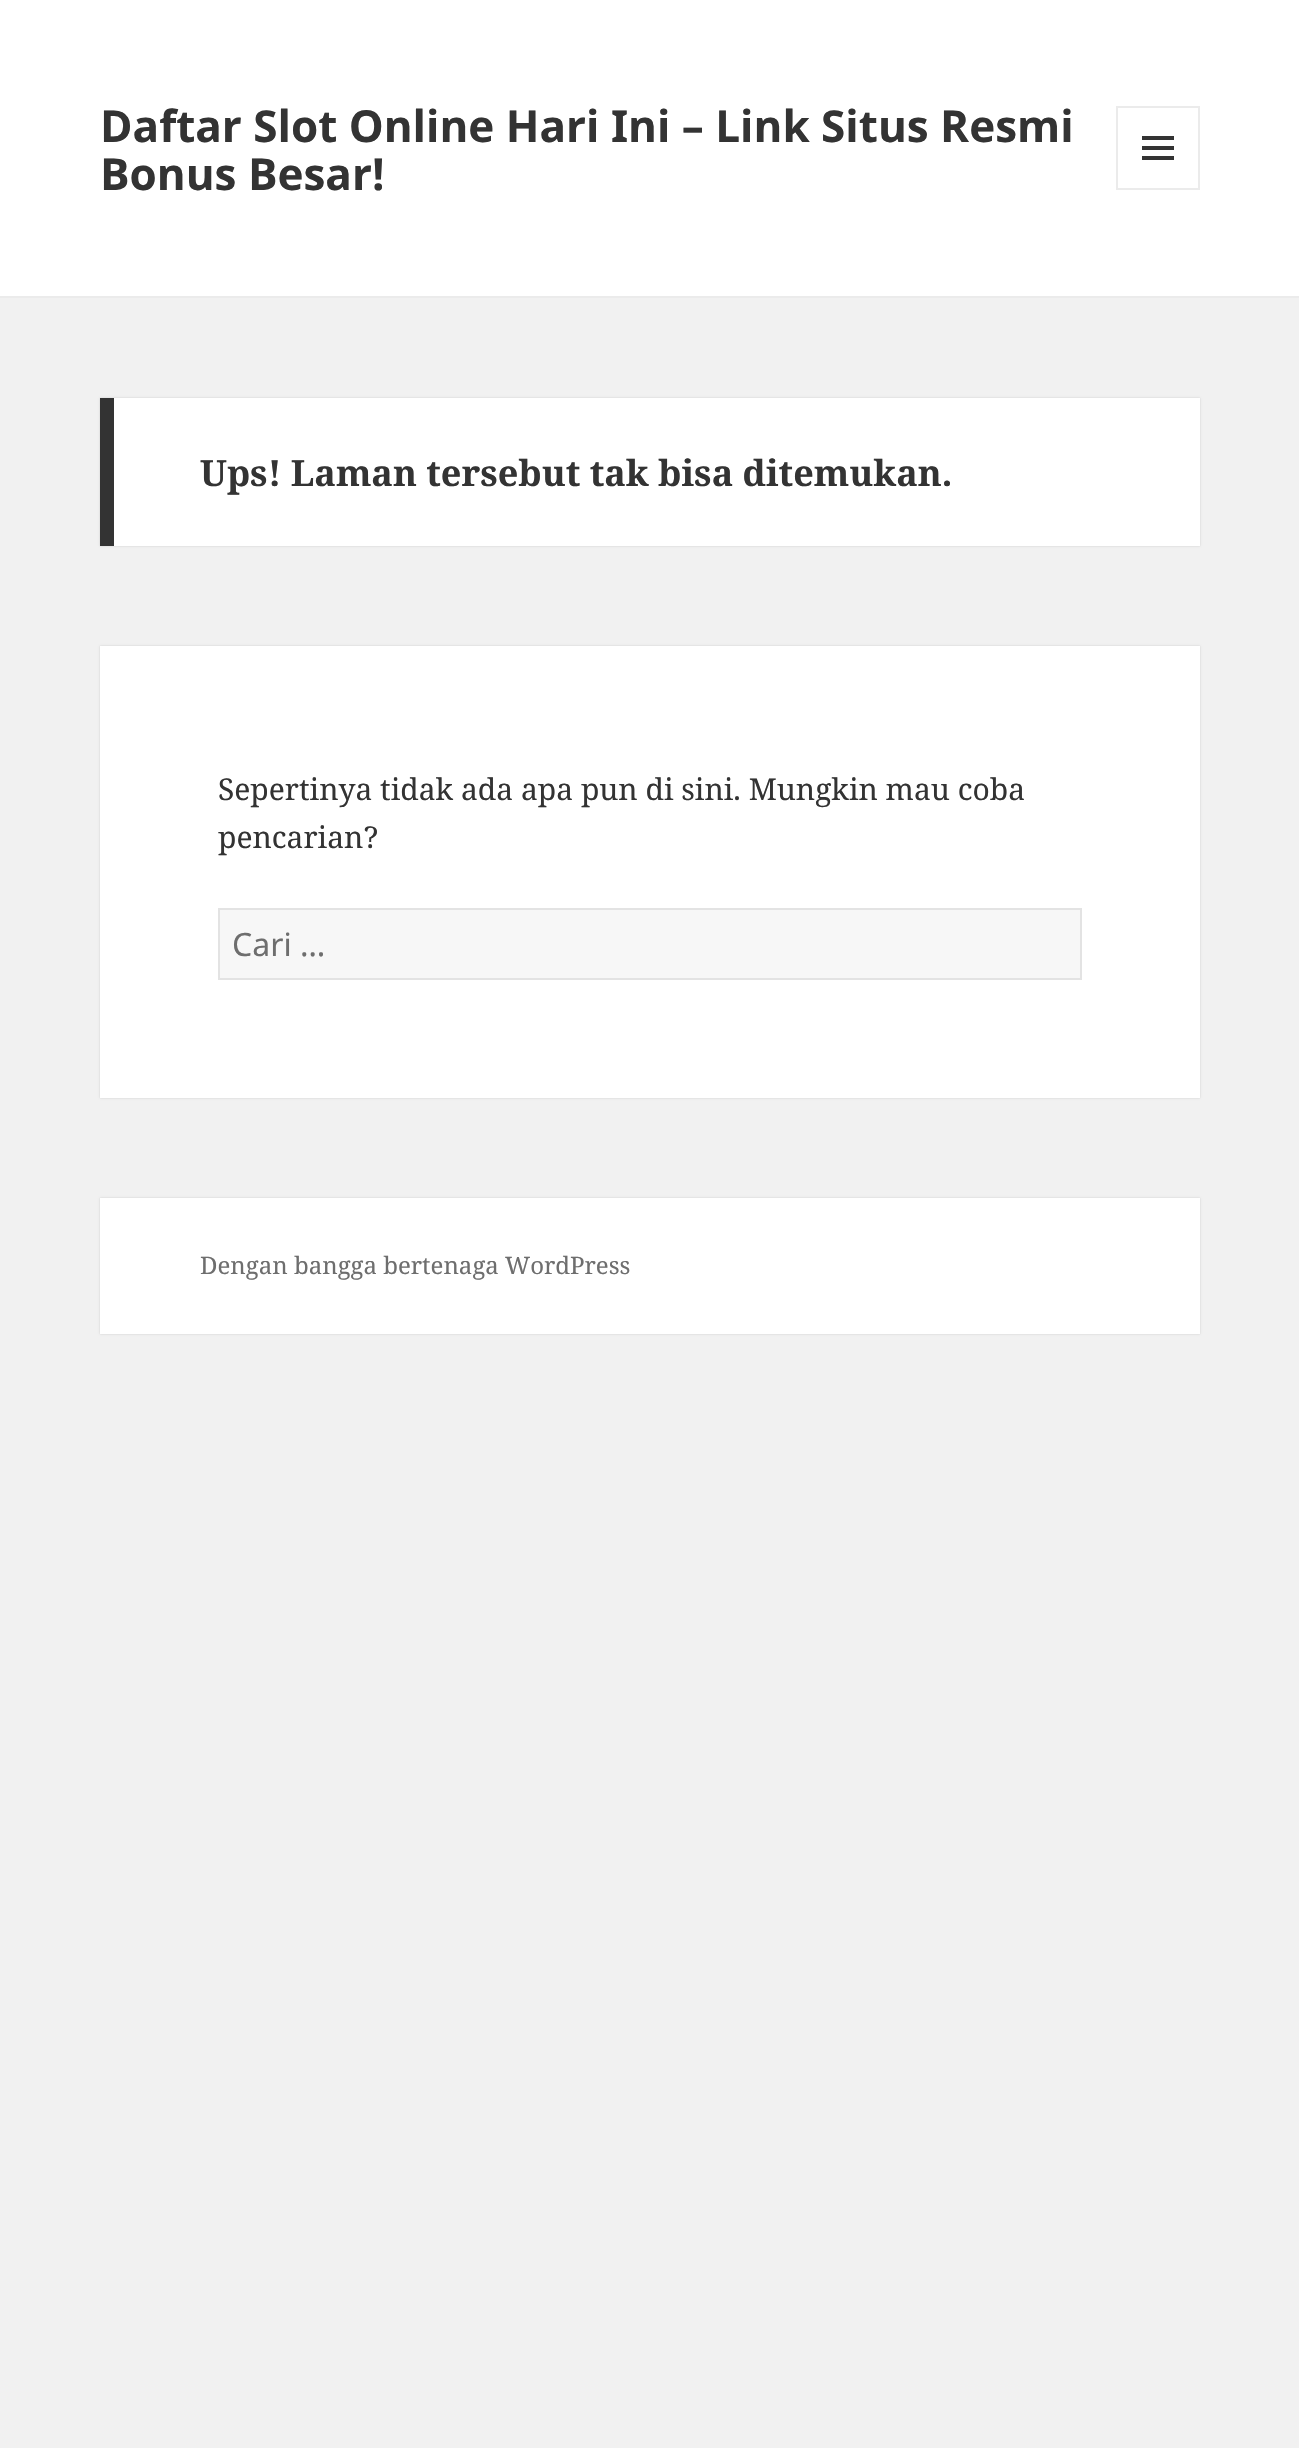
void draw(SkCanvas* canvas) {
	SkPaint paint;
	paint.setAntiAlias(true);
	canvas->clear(0xfff1f1f1);
	paint.setColor(0xffffffff);
	canvas->drawRect(SkRect::MakeXYWH(0, 0, 1299, 296), paint);
	paint.setColor(0xffebebeb);
	canvas->drawRect(SkRect::MakeXYWH(0, 296, 1299, 2), paint);
	SkFont f1(fontMgr->matchFamilyStyle("Noto Sans", SkFontStyle::Bold()), 44);
	f1.setSubpixel(true);
	paint.setColor(0xff333333);
	canvas->drawString("Daftar Slot Online Hari Ini – Link Situs Resmi", 100, 142, f1, paint);
	canvas->drawString("Bonus Besar!", 100, 190, f1, paint);
	paint.setStroke(true);
	paint.setStrokeWidth(2);
	paint.setColor(0xffebebeb);
	canvas->drawRect(SkRect::MakeXYWH(1117, 107, 82, 82), paint);
	canvas->drawImageRect(SkImages::DeferredFromEncodedData(SkData::MakeFromFileName("img1.png")), SkRect::MakeXYWH(1142, 136, 32, 24), SkSamplingOptions());
	paint.setStroke(false);
	paint.setColor(0x26000000);
	paint.setMaskFilter(SkMaskFilter::MakeBlur(kNormal_SkBlurStyle, 1));
	canvas->drawRect(SkRect::MakeXYWH(100, 398, 1100, 148), paint);
	paint.setMaskFilter(nullptr);
	paint.setColor(0xffffffff);
	canvas->drawRect(SkRect::MakeXYWH(114, 398, 1086, 148), paint);
	paint.setColor(0xff333333);
	canvas->drawRect(SkRect::MakeXYWH(100, 398, 14, 148), paint);
	SkFont f2(fontMgr->matchFamilyStyle("Noto Serif", SkFontStyle::Bold()), 36);
	f2.setSubpixel(true);
	canvas->drawString("Ups! Laman tersebut tak bisa ditemukan.", 200, 486, f2, paint);
	paint.setColor(0x26000000);
	paint.setMaskFilter(SkMaskFilter::MakeBlur(kNormal_SkBlurStyle, 1));
	canvas->drawRect(SkRect::MakeXYWH(100, 646, 1100, 452), paint);
	paint.setMaskFilter(nullptr);
	paint.setColor(0xffffffff);
	canvas->drawRect(SkRect::MakeXYWH(100, 646, 1100, 452), paint);
	SkFont f3(fontMgr->matchFamilyStyle("Noto Serif", SkFontStyle::Normal()), 30);
	f3.setSubpixel(true);
	paint.setColor(0xff333333);
	canvas->drawString("Sepertinya tidak ada apa pun di sini. Mungkin mau coba", 218, 800, f3, paint);
	canvas->drawString("pencarian?", 218, 848, f3, paint);
	paint.setColor(0xfff7f7f7);
	canvas->drawRect(SkRect::MakeXYWH(219, 909, 862, 70), paint);
	paint.setStroke(true);
	paint.setColor(0xffe3e3e3);
	canvas->drawRect(SkRect::MakeXYWH(219, 909, 862, 70), paint);
	SkFont f4(fontMgr->matchFamilyStyle("Noto Sans", SkFontStyle::Normal()), 32);
	f4.setSubpixel(true);
	paint.setStroke(false);
	paint.setColor(0xff6e6e6e);
	canvas->drawString("Cari …", 232, 956, f4, paint);
	paint.setColor(0x26000000);
	paint.setMaskFilter(SkMaskFilter::MakeBlur(kNormal_SkBlurStyle, 1));
	canvas->drawRect(SkRect::MakeXYWH(100, 1198, 1100, 136), paint);
	paint.setMaskFilter(nullptr);
	paint.setColor(0xffffffff);
	canvas->drawRect(SkRect::MakeXYWH(100, 1198, 1100, 136), paint);
	SkFont f5(fontMgr->matchFamilyStyle("Noto Serif", SkFontStyle::Normal()), 24);
	f5.setSubpixel(true);
	paint.setColor(0xff6e6e6e);
	canvas->drawString("Dengan bangga bertenaga WordPress", 200, 1274, f5, paint);
}
